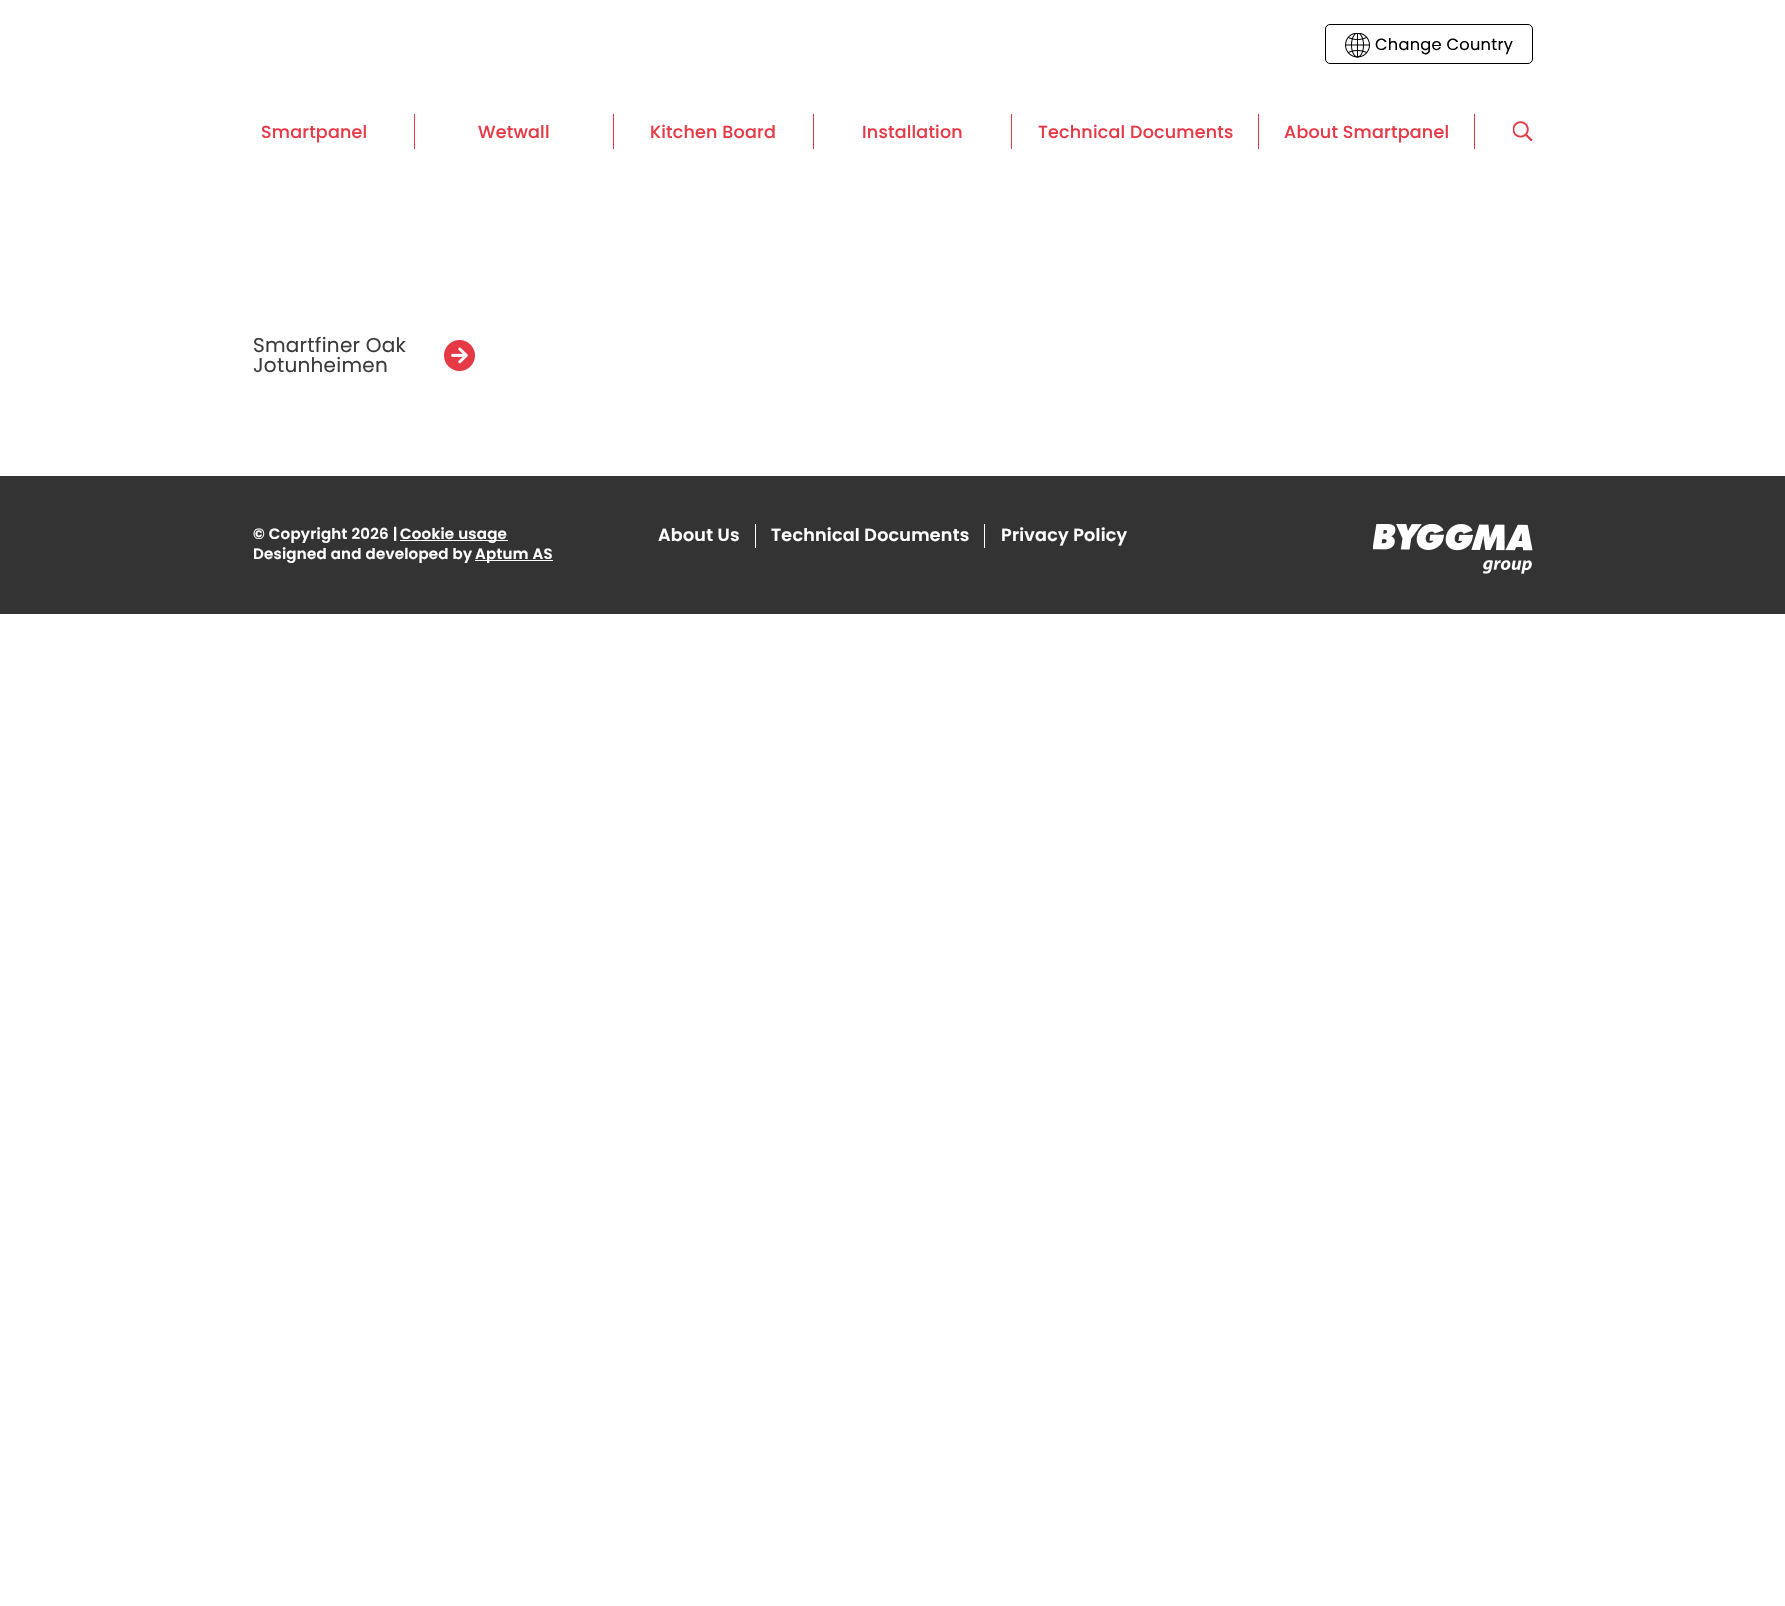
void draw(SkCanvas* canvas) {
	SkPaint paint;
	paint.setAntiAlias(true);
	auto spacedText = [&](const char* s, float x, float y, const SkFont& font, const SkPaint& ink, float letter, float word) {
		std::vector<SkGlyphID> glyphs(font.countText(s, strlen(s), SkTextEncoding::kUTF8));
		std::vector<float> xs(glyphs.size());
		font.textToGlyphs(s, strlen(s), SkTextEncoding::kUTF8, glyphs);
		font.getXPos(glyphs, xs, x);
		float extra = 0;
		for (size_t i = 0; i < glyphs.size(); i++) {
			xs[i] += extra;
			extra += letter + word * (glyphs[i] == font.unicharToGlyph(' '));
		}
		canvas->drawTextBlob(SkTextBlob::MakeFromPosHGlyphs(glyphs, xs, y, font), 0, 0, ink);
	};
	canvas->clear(0xffffffff);
	paint.setStroke(true);
	paint.setStrokeWidth(1);
	paint.setColor(0xff000000);
	canvas->drawRoundRect(SkRect::MakeXYWH(1325.5, 24.5, 207, 39), 4.5, 4.5, paint);
	canvas->drawImageRect(SkImages::DeferredFromEncodedData(SkData::MakeFromFileName("img1.png")), SkRect::MakeXYWH(1345, 33, 25, 25), SkSamplingOptions());
	SkFont f1(fontMgr->matchFamilyStyle("Poppins", SkFontStyle::Normal()), 16.25);
	f1.setSubpixel(true);
	paint.setStroke(false);
	spacedText("Change Country", 1375, 50, f1, paint, 0.25, 0);
	paint.setColor(0xffe63946);
	canvas->drawRect(SkRect::MakeXYWH(414, 114, 1, 35), paint);
	SkFont f2(fontMgr->matchFamilyStyle("Poppins", SkFontStyle(500, SkFontStyle::kNormal_Width, SkFontStyle::kUpright_Slant)), 17.5);
	f2.setSubpixel(true);
	spacedText("Smartpanel", 261, 138, f2, paint, 0.2, 0);
	canvas->drawRect(SkRect::MakeXYWH(613, 114, 1, 35), paint);
	spacedText("Wetwall", 478, 138, f2, paint, 0.2, 0);
	canvas->drawRect(SkRect::MakeXYWH(813, 114, 1, 35), paint);
	spacedText("Kitchen Board", 650, 138, f2, paint, 0.2, 0);
	canvas->drawRect(SkRect::MakeXYWH(1011, 114, 1, 35), paint);
	spacedText("Installation", 862, 138, f2, paint, 0.2, 0);
	canvas->drawRect(SkRect::MakeXYWH(1258, 114, 1, 35), paint);
	spacedText("Technical Documents", 1038, 138, f2, paint, 0.2, 0);
	canvas->drawRect(SkRect::MakeXYWH(1474, 114, 1, 35), paint);
	spacedText("About Smartpanel", 1284, 138, f2, paint, 0.2, 0);
	canvas->drawImageRect(SkImages::DeferredFromEncodedData(SkData::MakeFromFileName("img2.png")), SkRect::MakeXYWH(1513, 121, 20, 20), SkSamplingOptions());
	SkFont f3(fontMgr->matchFamilyStyle("Poppins", SkFontStyle::Normal()), 20);
	f3.setSubpixel(true);
	paint.setColor(0xff3b3b3b);
	spacedText("Smartfiner Oak", 253, 352, f3, paint, 0.25, 0);
	spacedText("Jotunheimen", 253, 372, f3, paint, 0.25, 0);
	canvas->drawImageRect(SkImages::DeferredFromEncodedData(SkData::MakeFromFileName("img3.png")), SkRect::MakeXYWH(444, 340, 31, 31), SkSamplingOptions());
	paint.setColor(0xff333333);
	canvas->drawRect(SkRect::MakeXYWH(0, 476, 1785, 138), paint);
	SkFont f4(fontMgr->matchFamilyStyle("Poppins", SkFontStyle(600, SkFontStyle::kNormal_Width, SkFontStyle::kUpright_Slant)), 15);
	f4.setSubpixel(true);
	paint.setColor(0xffffffff);
	spacedText("© Copyright 2026 |", 253, 539, f4, paint, 0.25, 0);
	canvas->drawRect(SkRect::MakeXYWH(400, 540, 108, 1), paint);
	spacedText("Cookie usage", 400, 539, f4, paint, 0.25, 0);
	spacedText("Designed and developed by", 253, 559, f4, paint, 0.25, 0);
	canvas->drawRect(SkRect::MakeXYWH(475, 560, 78, 1), paint);
	spacedText("Aptum AS", 475, 559, f4, paint, 0.25, 0);
	canvas->drawRect(SkRect::MakeXYWH(755, 524, 1, 24), paint);
	SkFont f5(fontMgr->matchFamilyStyle("Poppins", SkFontStyle(600, SkFontStyle::kNormal_Width, SkFontStyle::kUpright_Slant)), 17.5);
	f5.setSubpixel(true);
	spacedText("About Us", 658, 541, f5, paint, 0.25, 0);
	canvas->drawRect(SkRect::MakeXYWH(984, 524, 1, 24), paint);
	spacedText("Technical Documents", 771, 541, f5, paint, 0.25, 0);
	spacedText("Privacy Policy", 1001, 541, f5, paint, 0.25, 0);
	canvas->drawImageRect(SkImages::DeferredFromEncodedData(SkData::MakeFromFileName("img4.png")), SkRect::MakeXYWH(1373, 524, 160, 50), SkSamplingOptions());
}
